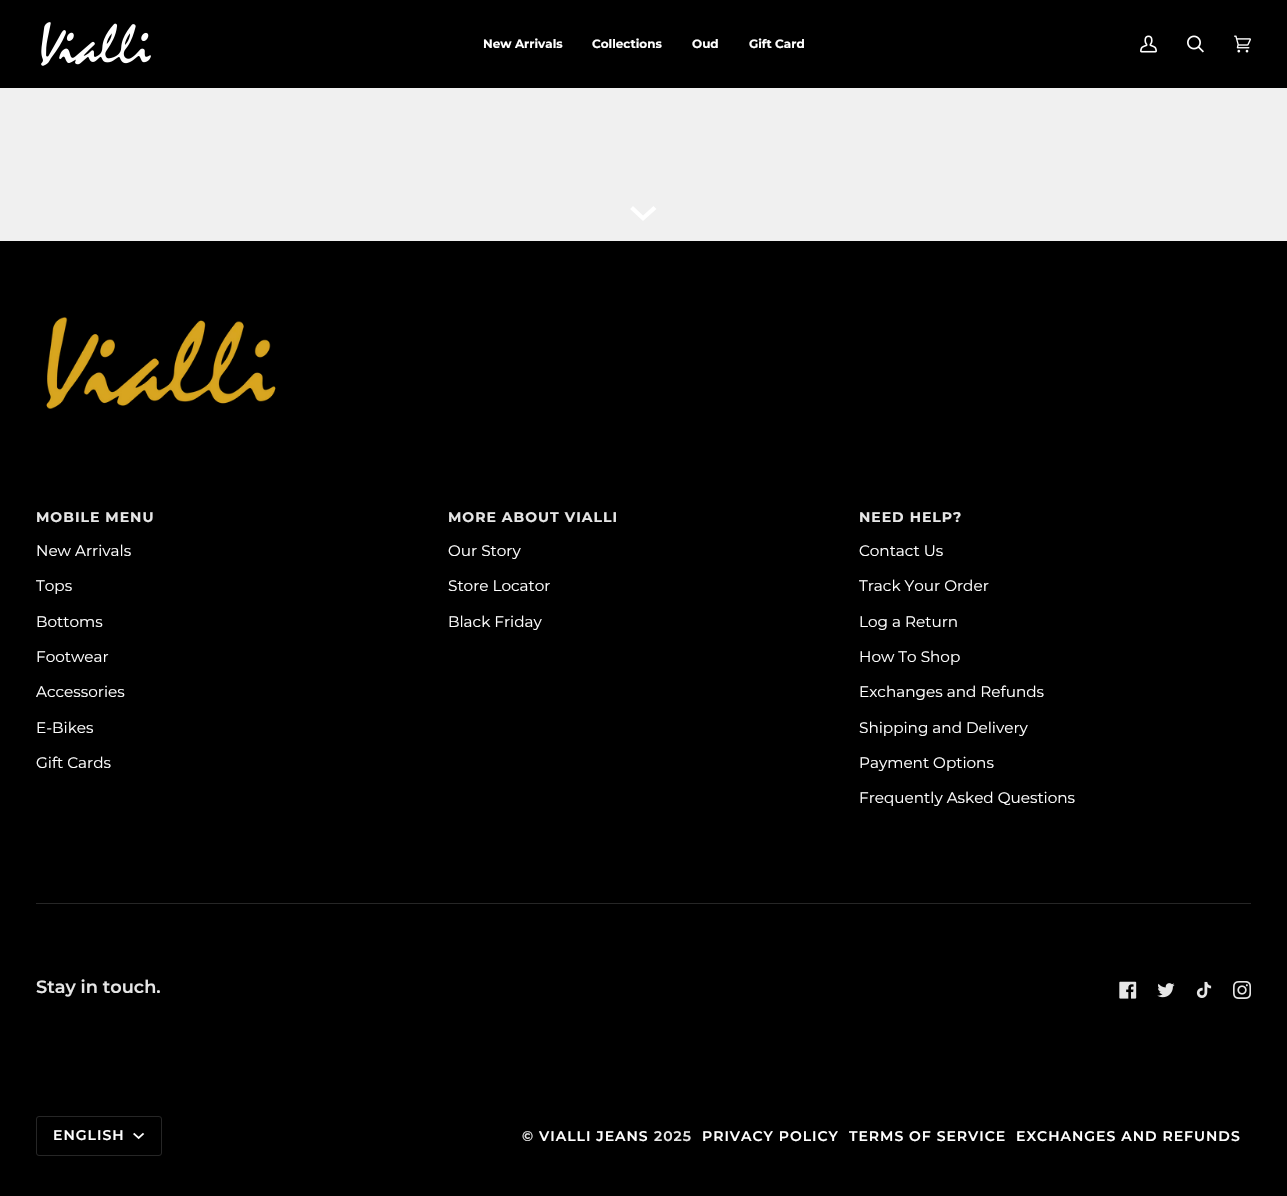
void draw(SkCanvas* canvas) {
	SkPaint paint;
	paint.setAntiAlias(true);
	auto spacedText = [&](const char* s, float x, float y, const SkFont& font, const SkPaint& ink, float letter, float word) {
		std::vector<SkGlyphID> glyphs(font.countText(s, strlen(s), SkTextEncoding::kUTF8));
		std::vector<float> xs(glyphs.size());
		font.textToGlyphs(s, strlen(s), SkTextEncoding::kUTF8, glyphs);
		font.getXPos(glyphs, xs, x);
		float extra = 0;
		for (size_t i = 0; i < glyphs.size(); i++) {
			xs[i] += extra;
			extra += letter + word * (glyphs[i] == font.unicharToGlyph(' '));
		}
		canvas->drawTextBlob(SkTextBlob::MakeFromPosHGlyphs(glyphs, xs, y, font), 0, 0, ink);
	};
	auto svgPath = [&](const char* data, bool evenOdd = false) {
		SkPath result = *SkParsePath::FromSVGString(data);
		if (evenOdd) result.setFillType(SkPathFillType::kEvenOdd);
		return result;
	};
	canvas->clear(0xfff0f0f0);
	paint.setColor(0xff000000);
	canvas->drawRect(SkRect::MakeXYWH(0, 0, 1287, 88), paint);
	canvas->drawImageRect(SkImages::DeferredFromEncodedData(SkData::MakeFromFileName("img1.png")), SkRect::MakeXYWH(41, 22, 110, 44), SkSamplingOptions());
	SkFont f1(fontMgr->matchFamilyStyle("Montserrat", SkFontStyle::Bold()), 12);
	f1.setSubpixel(true);
	paint.setColor(0xffffffff);
	canvas->drawString("New Arrivals", 483, 48, f1, paint);
	canvas->drawString("Collections", 592, 48, f1, paint);
	canvas->drawString("Oud", 692, 48, f1, paint);
	canvas->drawString("Gift Card", 749, 48, f1, paint);
	canvas->drawImageRect(SkImages::DeferredFromEncodedData(SkData::MakeFromFileName("img2.png")), SkRect::MakeXYWH(1140, 35, 17, 18), SkSamplingOptions());
	canvas->drawImageRect(SkImages::DeferredFromEncodedData(SkData::MakeFromFileName("img3.png")), SkRect::MakeXYWH(1187, 35, 17, 18), SkSamplingOptions());
	canvas->drawImageRect(SkImages::DeferredFromEncodedData(SkData::MakeFromFileName("img4.png")), SkRect::MakeXYWH(1234, 35, 17, 18), SkSamplingOptions());
	canvas->drawPath(svgPath("M630 209L633 206L643 215.5L653.5 206L656.5 209L643 221Z", true), paint);
	paint.setColor(0xff000000);
	canvas->drawRect(SkRect::MakeXYWH(0, 241, 1287, 955), paint);
	canvas->drawImageRect(SkImages::DeferredFromEncodedData(SkData::MakeFromFileName("img5.png")), SkRect::MakeXYWH(46, 317, 230, 92), SkSamplingOptions());
	SkFont f2(fontMgr->matchFamilyStyle("Montserrat", SkFontStyle::Bold()), 14);
	f2.setSubpixel(true);
	paint.setColor(0xffe6e6e6);
	spacedText("MOBILE MENU", 36, 522, f2, paint, 1, 0);
	SkFont f3(fontMgr->matchFamilyStyle("Montserrat", SkFontStyle::Normal()), 15.25);
	f3.setSubpixel(true);
	paint.setColor(0xffffffff);
	canvas->drawString("New Arrivals", 36, 556, f3, paint);
	canvas->drawString("Tops", 36, 591, f3, paint);
	canvas->drawString("Bottoms", 36, 627, f3, paint);
	canvas->drawString("Footwear", 36, 662, f3, paint);
	canvas->drawString("Accessories", 36, 697, f3, paint);
	canvas->drawString("E-Bikes", 36, 733, f3, paint);
	canvas->drawString("Gift Cards", 36, 768, f3, paint);
	paint.setColor(0xffe6e6e6);
	spacedText("MORE ABOUT VIALLI", 448, 522, f2, paint, 1, 0);
	paint.setColor(0xffffffff);
	canvas->drawString("Our Story", 448, 556, f3, paint);
	canvas->drawString("Store Locator", 448, 591, f3, paint);
	canvas->drawString("Black Friday", 448, 627, f3, paint);
	paint.setColor(0xffe6e6e6);
	spacedText("NEED HELP?", 859, 522, f2, paint, 1, 0);
	paint.setColor(0xffffffff);
	canvas->drawString("Contact Us", 859, 556, f3, paint);
	canvas->drawString("Track Your Order", 859, 591, f3, paint);
	canvas->drawString("Log a Return", 859, 627, f3, paint);
	canvas->drawString("How To Shop", 859, 662, f3, paint);
	canvas->drawString("Exchanges and Refunds", 859, 697, f3, paint);
	canvas->drawString("Shipping and Delivery", 859, 733, f3, paint);
	canvas->drawString("Payment Options", 859, 768, f3, paint);
	canvas->drawString("Frequently Asked Questions", 859, 803, f3, paint);
	paint.setColor(0xff262626);
	canvas->drawRect(SkRect::MakeXYWH(36, 903, 1215, 1), paint);
	SkFont f4(fontMgr->matchFamilyStyle("Montserrat", SkFontStyle(600, SkFontStyle::kNormal_Width, SkFontStyle::kUpright_Slant)), 17.75);
	f4.setSubpixel(true);
	paint.setColor(0xffe6e6e6);
	canvas->drawString("Stay in touch.", 36, 993, f4, paint);
	canvas->drawImageRect(SkImages::DeferredFromEncodedData(SkData::MakeFromFileName("img6.png")), SkRect::MakeXYWH(1119, 981, 18, 18), SkSamplingOptions());
	canvas->drawImageRect(SkImages::DeferredFromEncodedData(SkData::MakeFromFileName("img7.png")), SkRect::MakeXYWH(1157, 983, 18, 15), SkSamplingOptions());
	canvas->drawImageRect(SkImages::DeferredFromEncodedData(SkData::MakeFromFileName("img8.png")), SkRect::MakeXYWH(1196, 981, 16, 17), SkSamplingOptions());
	canvas->drawImageRect(SkImages::DeferredFromEncodedData(SkData::MakeFromFileName("img9.png")), SkRect::MakeXYWH(1233, 981, 18, 18), SkSamplingOptions());
	paint.setStroke(true);
	paint.setStrokeWidth(1);
	paint.setColor(0xff262626);
	canvas->drawRoundRect(SkRect::MakeXYWH(36.5, 1116.5, 125, 39), 2.5, 2.5, paint);
	SkFont f5(fontMgr->matchFamilyStyle("Montserrat", SkFontStyle(600, SkFontStyle::kNormal_Width, SkFontStyle::kUpright_Slant)), 14);
	f5.setSubpixel(true);
	paint.setStroke(false);
	paint.setColor(0xffffffff);
	spacedText("ENGLISH", 53, 1140, f5, paint, 1, 0);
	canvas->drawImageRect(SkImages::DeferredFromEncodedData(SkData::MakeFromFileName("img10.png")), SkRect::MakeXYWH(133, 1132, 12, 8), SkSamplingOptions());
	paint.setColor(0xffe6e6e6);
	spacedText("©", 522, 1141, f5, paint, 1, 0);
	paint.setColor(0xffffffff);
	spacedText("VIALLI JEANS", 539, 1141, f5, paint, 1, 0);
	paint.setColor(0xffe6e6e6);
	spacedText("2025", 654, 1141, f5, paint, 1, 0);
	paint.setColor(0xffffffff);
	spacedText("PRIVACY POLICY", 702, 1141, f5, paint, 1, 0);
	spacedText("TERMS OF SERVICE", 849, 1141, f5, paint, 1, 0);
	spacedText("EXCHANGES AND REFUNDS", 1016, 1141, f5, paint, 1, 0);
}
